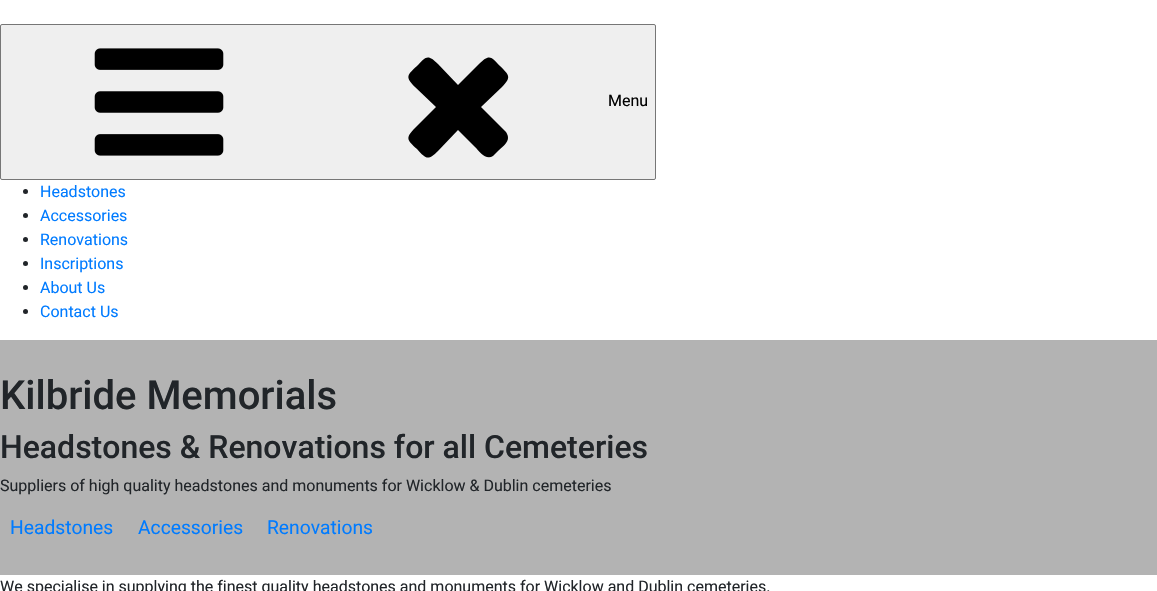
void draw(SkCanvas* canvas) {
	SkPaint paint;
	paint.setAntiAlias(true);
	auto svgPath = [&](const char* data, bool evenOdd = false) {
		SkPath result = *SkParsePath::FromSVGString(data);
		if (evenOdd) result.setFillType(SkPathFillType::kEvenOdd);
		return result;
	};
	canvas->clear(0xffffffff);
	paint.setColor(0xffefefef);
	canvas->drawRoundRect(SkRect::MakeXYWH(0.5, 24.5, 655, 155), 1.5, 1.5, paint);
	paint.setStroke(true);
	paint.setStrokeWidth(1);
	paint.setColor(0xff767676);
	canvas->drawRoundRect(SkRect::MakeXYWH(0.5, 24.5, 655, 155), 1.5, 1.5, paint);
	canvas->drawImageRect(SkImages::DeferredFromEncodedData(SkData::MakeFromFileName("img1.png")), SkRect::MakeXYWH(94, 48, 130, 108), SkSamplingOptions());
	paint.setStroke(false);
	paint.setColor(0xff000000);
	canvas->drawPath(svgPath("M508 138C508 143 502 147 498 151L493 156C486 161 479 151 475 147L458 130L438 151C428 161 426 159 417 149C407 140 405 138 415 128L436 107L415 87C405 77 407 75 417 66C426 56 428 54 438 64L458 85L479 64C489 54 491 56 500 66C509 75 512 77 502 87L481 107L506 132C507 134 508 135 508 138Z"), paint);
	SkFont f1(fontMgr->matchFamilyStyle("Roboto", SkFontStyle::Normal()), 16);
	f1.setSubpixel(true);
	canvas->drawString("Menu", 608, 106, f1, paint);
	paint.setColor(0xff212529);
	canvas->drawCircle(25.5, 191.5, 2.5, paint);
	paint.setColor(0xff007bff);
	canvas->drawString("Headstones", 40, 197, f1, paint);
	paint.setColor(0xff212529);
	canvas->drawCircle(25.5, 215.5, 2.5, paint);
	paint.setColor(0xff007bff);
	canvas->drawString("Accessories", 40, 221, f1, paint);
	paint.setColor(0xff212529);
	canvas->drawCircle(25.5, 239.5, 2.5, paint);
	paint.setColor(0xff007bff);
	canvas->drawString("Renovations", 40, 245, f1, paint);
	paint.setColor(0xff212529);
	canvas->drawCircle(25.5, 263.5, 2.5, paint);
	paint.setColor(0xff007bff);
	canvas->drawString("Inscriptions", 40, 269, f1, paint);
	paint.setColor(0xff212529);
	canvas->drawCircle(25.5, 287.5, 2.5, paint);
	paint.setColor(0xff007bff);
	canvas->drawString("About Us", 40, 293, f1, paint);
	paint.setColor(0xff212529);
	canvas->drawCircle(25.5, 311.5, 2.5, paint);
	paint.setColor(0xff007bff);
	canvas->drawString("Contact Us", 40, 317, f1, paint);
	paint.setColor(0xffb3b3b3);
	canvas->drawRect(SkRect::MakeXYWH(0, 340, 1157, 235), paint);
	SkFont f2(fontMgr->matchFamilyStyle("Roboto", SkFontStyle(500, SkFontStyle::kNormal_Width, SkFontStyle::kUpright_Slant)), 40);
	f2.setSubpixel(true);
	paint.setColor(0xff212529);
	canvas->drawString("Kilbride Memorials", 0, 409, f2, paint);
	SkFont f3(fontMgr->matchFamilyStyle("Roboto", SkFontStyle(500, SkFontStyle::kNormal_Width, SkFontStyle::kUpright_Slant)), 32);
	f3.setSubpixel(true);
	canvas->drawString("Headstones & Renovations for all Cemeteries", 0, 458, f3, paint);
	canvas->drawString("Suppliers of high quality headstones and monuments for Wicklow & Dublin cemeteries", 0, 491, f1, paint);
	SkFont f4(fontMgr->matchFamilyStyle("Roboto", SkFontStyle::Normal()), 19.25);
	f4.setSubpixel(true);
	paint.setColor(0xff007bff);
	canvas->drawString("Headstones", 10, 534, f4, paint);
	canvas->drawString("Accessories", 138, 534, f4, paint);
	canvas->drawString("Renovations", 267, 534, f4, paint);
	paint.setColor(0xff212529);
	canvas->drawString("We specialise in supplying the finest quality headstones and monuments for Wicklow and Dublin cemeteries.", 0, 592, f1, paint);
}
